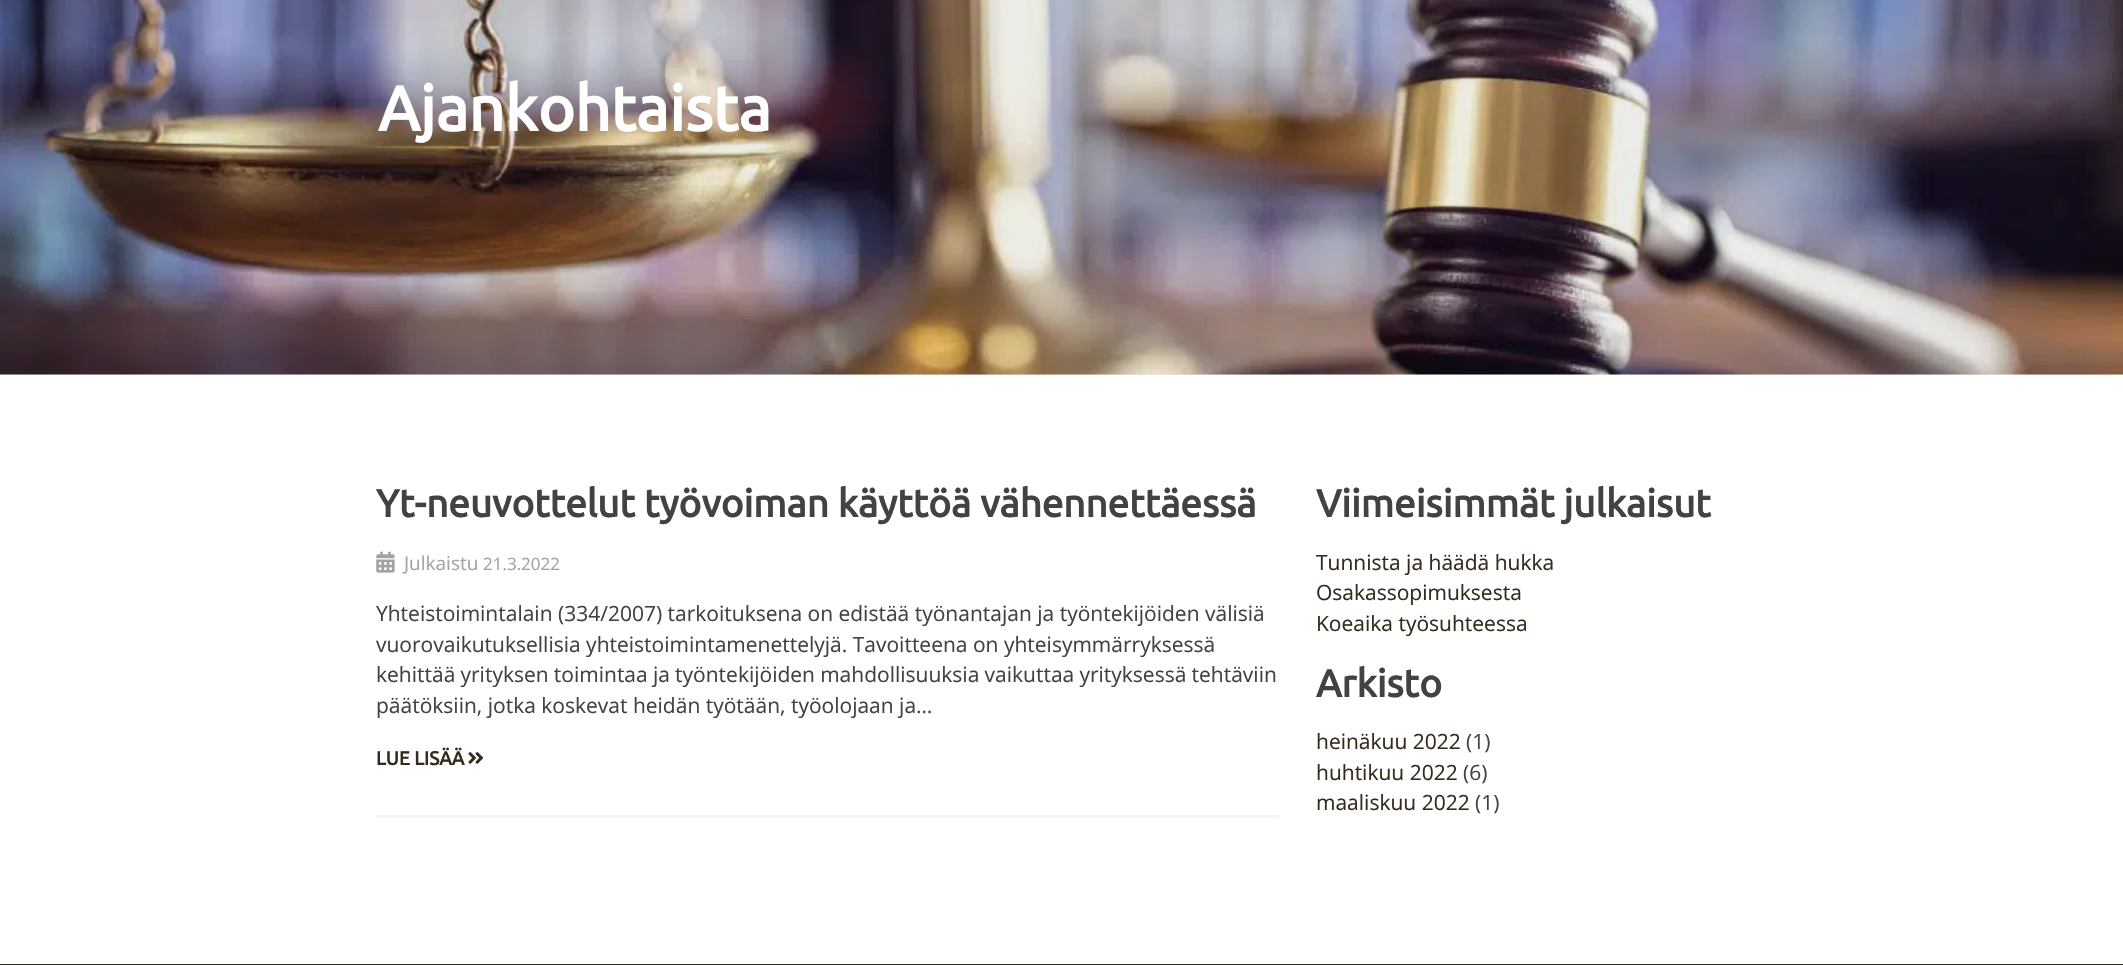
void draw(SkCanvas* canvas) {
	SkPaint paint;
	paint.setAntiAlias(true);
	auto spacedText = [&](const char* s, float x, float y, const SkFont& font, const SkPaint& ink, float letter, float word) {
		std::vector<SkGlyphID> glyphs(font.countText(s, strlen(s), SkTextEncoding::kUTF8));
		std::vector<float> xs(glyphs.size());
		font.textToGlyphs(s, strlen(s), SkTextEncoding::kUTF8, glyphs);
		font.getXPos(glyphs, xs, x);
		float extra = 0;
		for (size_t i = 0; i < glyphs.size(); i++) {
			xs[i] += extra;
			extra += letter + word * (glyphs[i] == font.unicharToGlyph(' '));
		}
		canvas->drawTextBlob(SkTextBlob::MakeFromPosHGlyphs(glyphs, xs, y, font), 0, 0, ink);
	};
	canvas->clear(0xffffffff);
	paint.setColor(0xffededed);
	canvas->drawRect(SkRect::MakeXYWH(0, 374, 2123, 1), paint);
	canvas->drawImageRect(SkImages::DeferredFromEncodedData(SkData::MakeFromFileName("img1.png")), SkRect::MakeXYWH(0, 0, 2123, 375), SkSamplingOptions());
	SkFont f1(fontMgr->matchFamilyStyle("Ubuntu", SkFontStyle::Bold()), 63);
	f1.setSubpixel(true);
	paint.setColor(0xffffffff);
	canvas->drawString("Ajankohtaista", 378, 131, f1, paint);
	SkFont f2(fontMgr->matchFamilyStyle("Ubuntu", SkFontStyle::Bold()), 38.6);
	f2.setSubpixel(true);
	paint.setColor(0xff424242);
	canvas->drawString("Yt-neuvottelut työvoiman käyttöä vähennettäessä", 376, 517, f2, paint);
	canvas->drawImageRect(SkImages::DeferredFromEncodedData(SkData::MakeFromFileName("img2.png")), SkRect::MakeXYWH(376, 551, 19, 22), SkSamplingOptions());
	SkFont f3(fontMgr->matchFamilyStyle("Open Sans", SkFontStyle::Normal()), 19);
	f3.setSubpixel(true);
	paint.setColor(0xffa2a2a2);
	canvas->drawString("Julkaistu", 404, 570, f3, paint);
	SkFont f4(fontMgr->matchFamilyStyle("Open Sans", SkFontStyle::Normal()), 17);
	f4.setSubpixel(true);
	canvas->drawString("21.3.2022", 483, 570, f4, paint);
	SkFont f5(fontMgr->matchFamilyStyle("Open Sans", SkFontStyle::Normal()), 21);
	f5.setSubpixel(true);
	paint.setColor(0xff424242);
	canvas->drawString("Yhteistoimintalain (334/2007) tarkoituksena on edistää työnantajan ja työntekijöiden välisiä", 376, 621, f5, paint);
	canvas->drawString("vuorovaikutuksellisia yhteistoimintamenettelyjä. Tavoitteena on yhteisymmärryksessä", 376, 652, f5, paint);
	spacedText("kehittää yrityksen toimintaa ja työntekijöiden mahdollisuuksia vaikuttaa yrityksessä tehtäviin", 376, 682, f5, paint, 0, -0.25);
	canvas->drawString("päätöksiin, jotka koskevat heidän työtään, työolojaan ja…", 376, 713, f5, paint);
	SkFont f6(fontMgr->matchFamilyStyle("Ubuntu", SkFontStyle::Bold()), 19);
	f6.setSubpixel(true);
	paint.setColor(0xff352b1d);
	canvas->drawString("LUE LISÄÄ", 376, 765, f6, paint);
	canvas->drawImageRect(SkImages::DeferredFromEncodedData(SkData::MakeFromFileName("img3.png")), SkRect::MakeXYWH(468, 752, 16, 12), SkSamplingOptions());
	paint.setColor(0xfff5f5f5);
	canvas->drawRect(SkRect::MakeXYWH(376, 815, 903, 3), paint);
	paint.setColor(0xff424242);
	canvas->drawString("Viimeisimmät julkaisut", 1316, 517, f2, paint);
	paint.setColor(0xff352b1d);
	canvas->drawString("Tunnista ja häädä hukka", 1316, 570, f5, paint);
	canvas->drawString("Osakassopimuksesta", 1316, 600, f5, paint);
	canvas->drawString("Koeaika työsuhteessa", 1316, 631, f5, paint);
	paint.setColor(0xff424242);
	canvas->drawString("Arkisto", 1316, 697, f2, paint);
	paint.setColor(0xff352b1d);
	canvas->drawString("heinäkuu 2022", 1316, 749, f5, paint);
	paint.setColor(0xff424242);
	canvas->drawString("(1)", 1466, 749, f5, paint);
	paint.setColor(0xff352b1d);
	canvas->drawString("huhtikuu 2022", 1316, 780, f5, paint);
	paint.setColor(0xff424242);
	canvas->drawString("(6)", 1463, 780, f5, paint);
	paint.setColor(0xff352b1d);
	canvas->drawString("maaliskuu 2022", 1316, 810, f5, paint);
	paint.setColor(0xff424242);
	canvas->drawString("(1)", 1475, 810, f5, paint);
	paint.setColor(0xff352b1d);
	canvas->drawRect(SkRect::MakeXYWH(0, 964, 2123, 1), paint);
}
